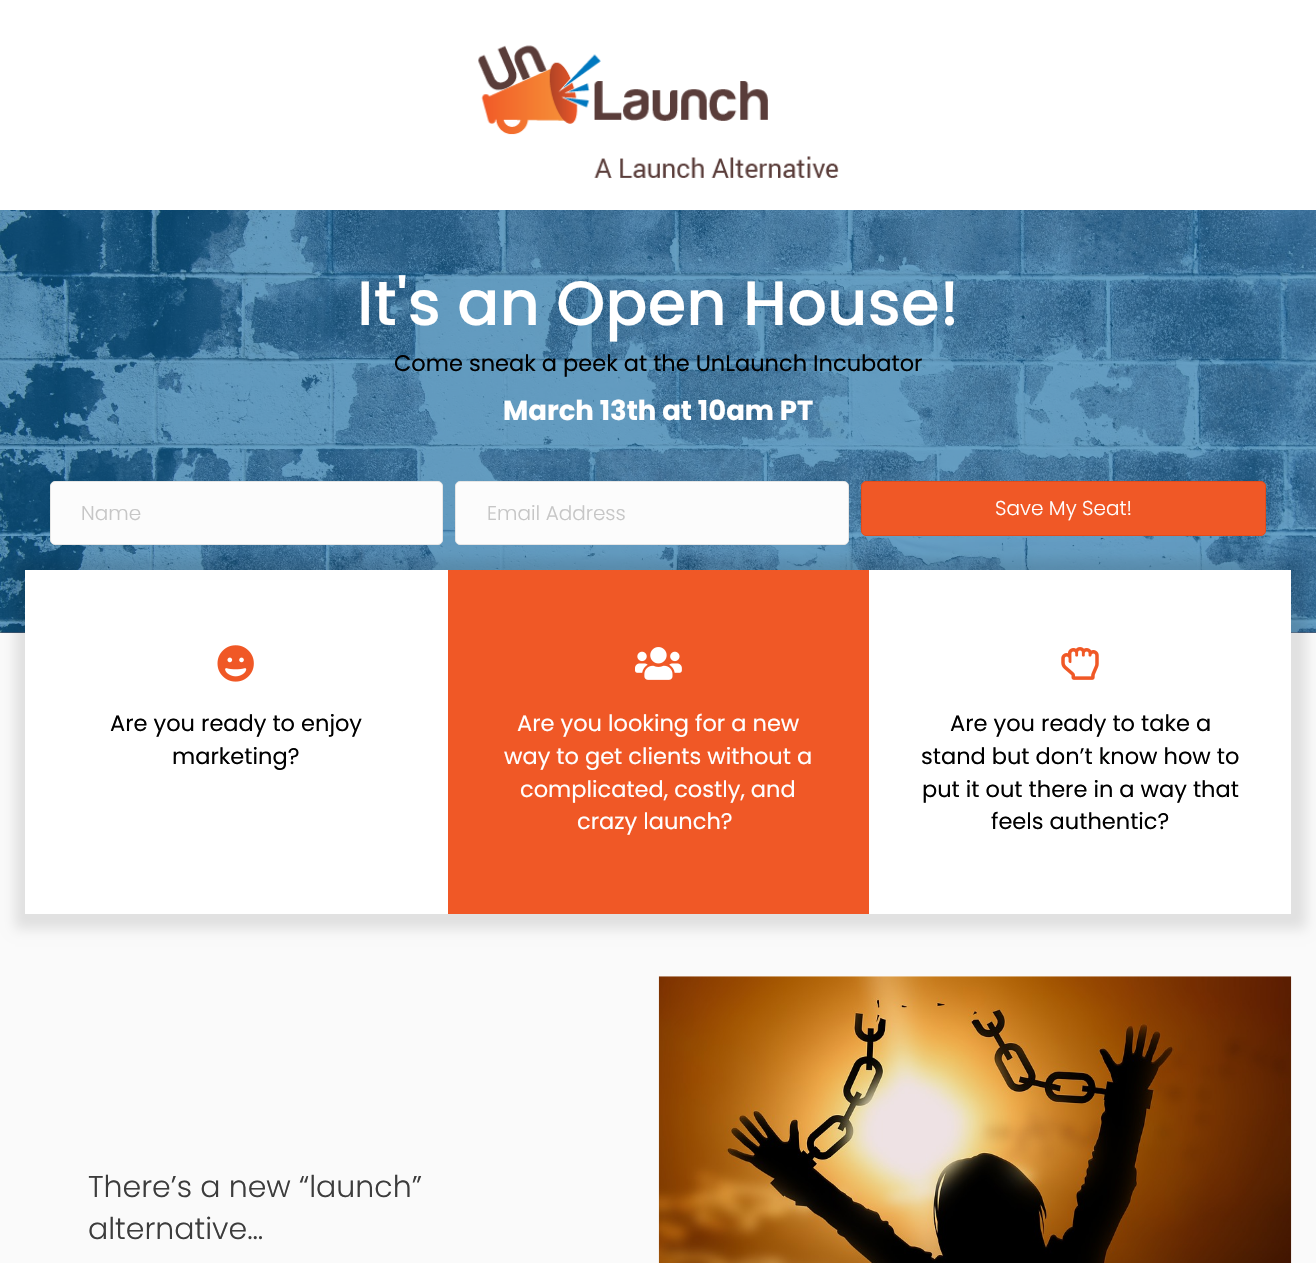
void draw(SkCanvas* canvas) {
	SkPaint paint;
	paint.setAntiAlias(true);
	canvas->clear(0xffffffff);
	canvas->drawImageRect(SkImages::DeferredFromEncodedData(SkData::MakeFromFileName("img1.png")), SkRect::MakeXYWH(478, 45, 361, 133), SkSamplingOptions());
	paint.setColor(0xff625d6d);
	canvas->drawRect(SkRect::MakeXYWH(0, 632, 1316, 1), paint);
	canvas->drawImageRect(SkImages::DeferredFromEncodedData(SkData::MakeFromFileName("img2.png")), SkRect::MakeXYWH(0, 210, 1316, 423), SkSamplingOptions());
	SkFont f1(fontMgr->matchFamilyStyle("Poppins", SkFontStyle(500, SkFontStyle::kNormal_Width, SkFontStyle::kUpright_Slant)), 62.5);
	f1.setSubpixel(true);
	paint.setColor(0xffffffff);
	canvas->drawString("It's an Open House!", 357, 325, f1, paint);
	SkFont f2(fontMgr->matchFamilyStyle("Poppins", SkFontStyle::Normal()), 22.5);
	f2.setSubpixel(true);
	paint.setColor(0xff000000);
	canvas->drawString("Come sneak a peek at the UnLaunch Incubator", 394, 371, f2, paint);
	SkFont f3(fontMgr->matchFamilyStyle("Poppins", SkFontStyle::Bold()), 27.5);
	f3.setSubpixel(true);
	paint.setColor(0xffffffff);
	canvas->drawString("March 13th at 10am PT", 503, 420, f3, paint);
	paint.setColor(0xfffafafa);
	canvas->drawRect(SkRect::MakeXYWH(0, 633, 1316, 630), paint);
	paint.setColor(0x1a000000);
	paint.setMaskFilter(SkMaskFilter::MakeBlur(kNormal_SkBlurStyle, 6));
	canvas->drawRect(SkRect::MakeXYWH(15, 560, 1291, 369), paint);
	paint.setMaskFilter(nullptr);
	paint.setColor(0xfffcfcfc);
	canvas->drawRoundRect(SkRect::MakeXYWH(50.5, 481.5, 392, 63), 4.5, 4.5, paint);
	paint.setStroke(true);
	paint.setStrokeWidth(1);
	paint.setColor(0xffe6e6e6);
	canvas->drawRoundRect(SkRect::MakeXYWH(50.5, 481.5, 392, 63), 4.5, 4.5, paint);
	SkFont f4(fontMgr->matchFamilyStyle("Poppins", SkFontStyle(300, SkFontStyle::kNormal_Width, SkFontStyle::kUpright_Slant)), 20);
	f4.setSubpixel(true);
	paint.setStroke(false);
	paint.setColor(0xffc6c6c6);
	canvas->drawString("Name", 81, 520, f4, paint);
	paint.setColor(0xfffcfcfc);
	canvas->drawRoundRect(SkRect::MakeXYWH(455.5, 481.5, 393, 63), 4.5, 4.5, paint);
	paint.setStroke(true);
	paint.setColor(0xffe6e6e6);
	canvas->drawRoundRect(SkRect::MakeXYWH(455.5, 481.5, 393, 63), 4.5, 4.5, paint);
	paint.setStroke(false);
	paint.setColor(0xffc6c6c6);
	canvas->drawString("Email Address", 487, 520, f4, paint);
	paint.setColor(0xfff05826);
	canvas->drawRoundRect(SkRect::MakeXYWH(861.5, 481.5, 404, 54), 4.5, 4.5, paint);
	paint.setStroke(true);
	paint.setColor(0xffe44c1a);
	canvas->drawRoundRect(SkRect::MakeXYWH(861.5, 481.5, 404, 54), 4.5, 4.5, paint);
	paint.setStroke(false);
	paint.setColor(0xffffffff);
	canvas->drawString("Save My Seat!", 995, 515, f4, paint);
	canvas->drawRect(SkRect::MakeXYWH(25, 570, 1266, 344), paint);
	canvas->drawImageRect(SkImages::DeferredFromEncodedData(SkData::MakeFromFileName("img3.png")), SkRect::MakeXYWH(217, 645, 37, 37), SkSamplingOptions());
	paint.setColor(0xff000000);
	canvas->drawString("Are you ready to enjoy", 110, 731, f2, paint);
	canvas->drawString("marketing?", 172, 764, f2, paint);
	paint.setColor(0xfff05826);
	canvas->drawRect(SkRect::MakeXYWH(448, 570, 421, 344), paint);
	canvas->drawImageRect(SkImages::DeferredFromEncodedData(SkData::MakeFromFileName("img4.png")), SkRect::MakeXYWH(635, 647, 47, 33), SkSamplingOptions());
	paint.setColor(0xffffffff);
	canvas->drawString("Are you looking for a new", 517, 731, f2, paint);
	canvas->drawString("way to get clients without a", 504, 764, f2, paint);
	canvas->drawString("complicated, costly, and", 520, 797, f2, paint);
	canvas->drawString("crazy launch?", 577, 829, f2, paint);
	canvas->drawImageRect(SkImages::DeferredFromEncodedData(SkData::MakeFromFileName("img5.png")), SkRect::MakeXYWH(1061, 647, 38, 33), SkSamplingOptions());
	paint.setColor(0xff000000);
	canvas->drawString("Are you ready to take a", 950, 731, f2, paint);
	canvas->drawString("stand but don’t know how to", 921, 764, f2, paint);
	canvas->drawString("put it out there in a way that", 922, 797, f2, paint);
	canvas->drawString("feels authentic?", 991, 829, f2, paint);
	SkFont f5(fontMgr->matchFamilyStyle("Poppins", SkFontStyle(300, SkFontStyle::kNormal_Width, SkFontStyle::kUpright_Slant)), 30);
	f5.setSubpixel(true);
	paint.setColor(0xff3c3c3c);
	canvas->drawString("There’s a new “launch”", 88, 1197, f5, paint);
	canvas->drawString("alternative…", 88, 1239, f5, paint);
	paint.setColor(0xffffffff);
	canvas->drawRect(SkRect::MakeXYWH(659, 976, 632, 1), paint);
	canvas->drawImageRect(SkImages::DeferredFromEncodedData(SkData::MakeFromFileName("img6.png")), SkRect::MakeXYWH(658, 976, 634, 287), SkSamplingOptions());
}
